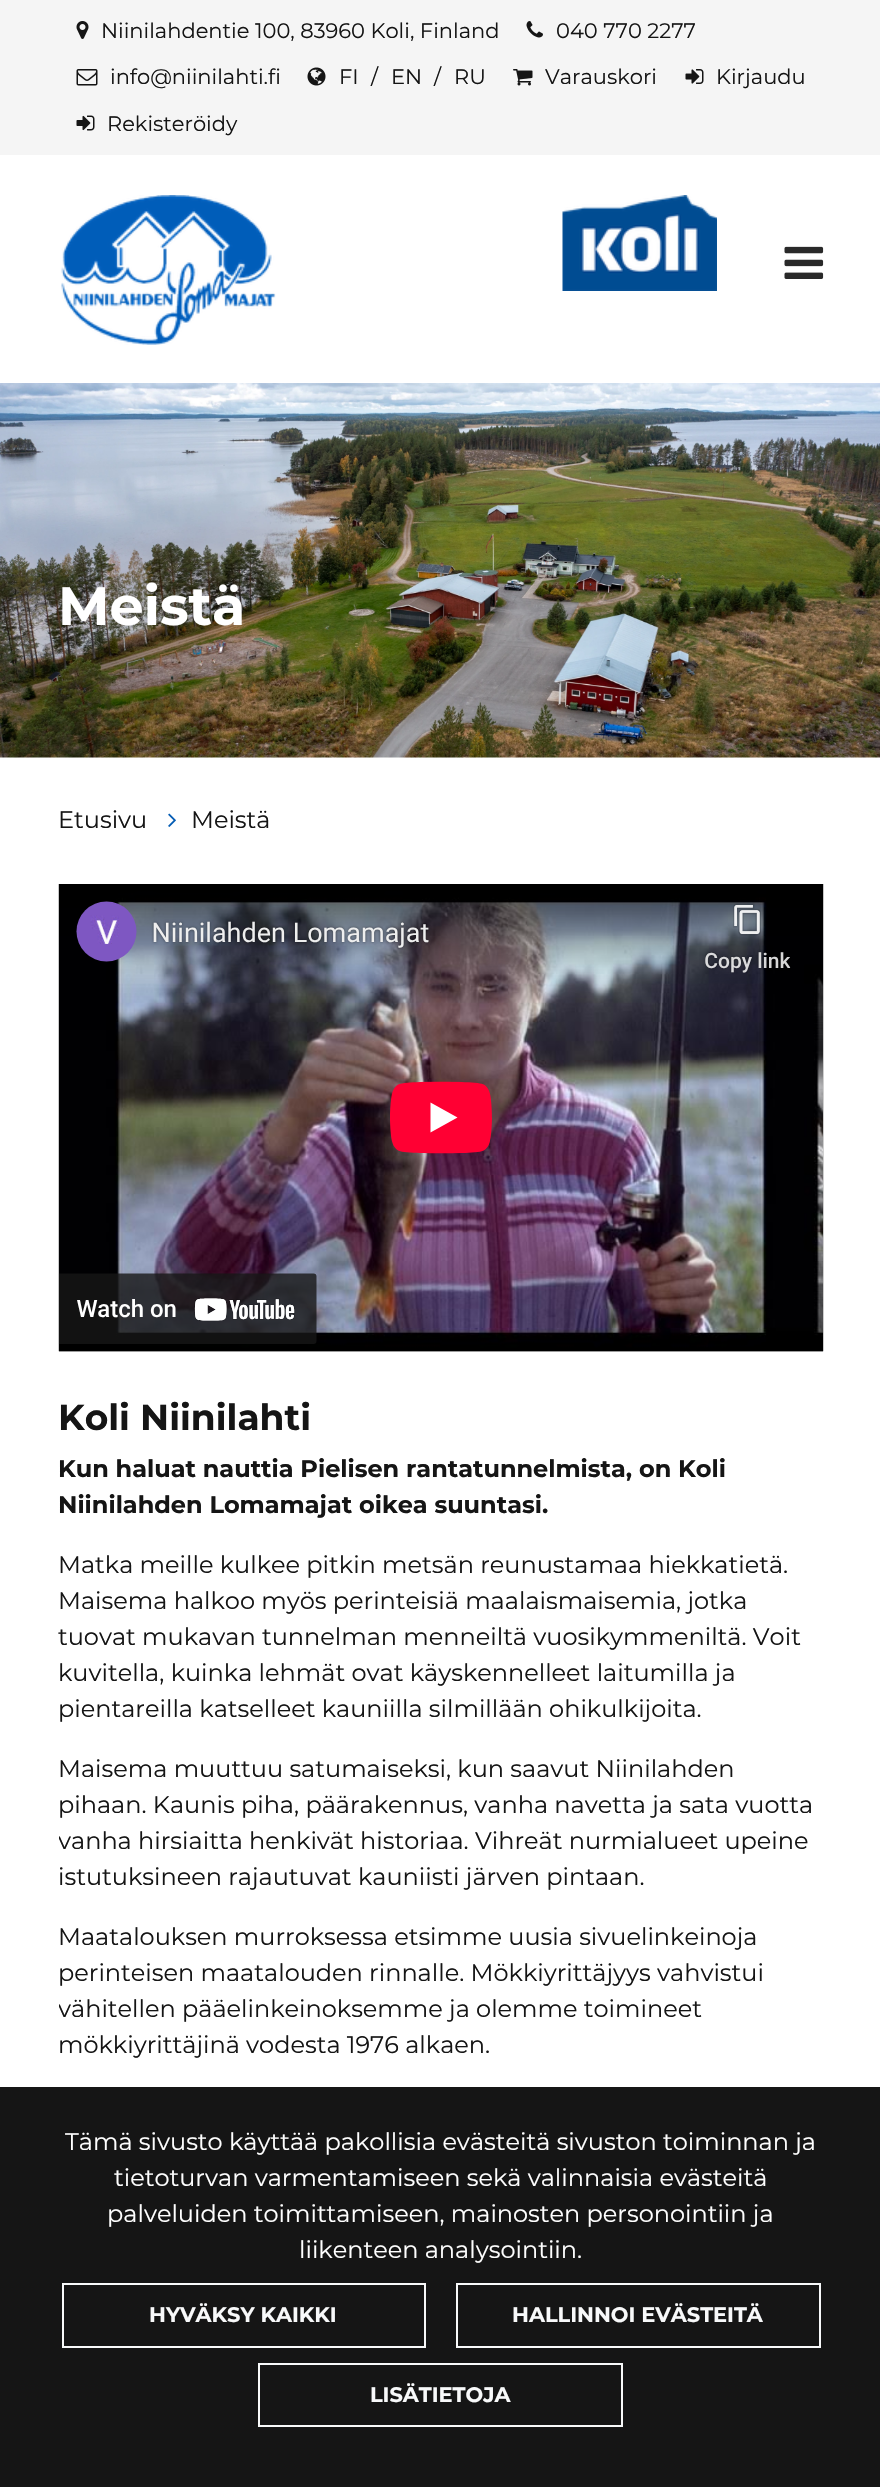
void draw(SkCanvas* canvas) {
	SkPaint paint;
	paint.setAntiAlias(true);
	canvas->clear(0xffffffff);
	paint.setColor(0xfff5f5f5);
	canvas->drawRect(SkRect::MakeXYWH(0, 0, 880, 155), paint);
	canvas->drawImageRect(SkImages::DeferredFromEncodedData(SkData::MakeFromFileName("img1.png")), SkRect::MakeXYWH(76, 21, 13, 18), SkSamplingOptions());
	SkFont f1(fontMgr->matchFamilyStyle("Montserrat", SkFontStyle::Normal()), 21);
	f1.setSubpixel(true);
	paint.setColor(0xff151515);
	canvas->drawString("Niinilahdentie 100, 83960 Koli, Finland", 101, 38, f1, paint);
	canvas->drawImageRect(SkImages::DeferredFromEncodedData(SkData::MakeFromFileName("img2.png")), SkRect::MakeXYWH(526, 21, 17, 17), SkSamplingOptions());
	canvas->drawString("040 770 2277", 556, 38, f1, paint);
	canvas->drawImageRect(SkImages::DeferredFromEncodedData(SkData::MakeFromFileName("img3.png")), SkRect::MakeXYWH(76, 69, 22, 17), SkSamplingOptions());
	canvas->drawString("info@niinilahti.fi", 110, 84, f1, paint);
	canvas->drawImageRect(SkImages::DeferredFromEncodedData(SkData::MakeFromFileName("img4.png")), SkRect::MakeXYWH(307, 67, 19, 19), SkSamplingOptions());
	canvas->drawString("FI", 339, 84, f1, paint);
	canvas->drawString("/", 371, 84, f1, paint);
	canvas->drawString("EN", 391, 84, f1, paint);
	canvas->drawString("/", 434, 84, f1, paint);
	canvas->drawString("RU", 454, 84, f1, paint);
	canvas->drawImageRect(SkImages::DeferredFromEncodedData(SkData::MakeFromFileName("img5.png")), SkRect::MakeXYWH(513, 69, 20, 17), SkSamplingOptions());
	canvas->drawString("Varauskori", 545, 84, f1, paint);
	canvas->drawImageRect(SkImages::DeferredFromEncodedData(SkData::MakeFromFileName("img6.png")), SkRect::MakeXYWH(685, 69, 19, 15), SkSamplingOptions());
	canvas->drawString("Kirjaudu", 716, 84, f1, paint);
	canvas->drawImageRect(SkImages::DeferredFromEncodedData(SkData::MakeFromFileName("img7.png")), SkRect::MakeXYWH(76, 115, 19, 16), SkSamplingOptions());
	canvas->drawString("Rekisteröidy", 107, 131, f1, paint);
	canvas->drawImageRect(SkImages::DeferredFromEncodedData(SkData::MakeFromFileName("img8.png")), SkRect::MakeXYWH(61, 195, 215, 150), SkSamplingOptions());
	canvas->drawImageRect(SkImages::DeferredFromEncodedData(SkData::MakeFromFileName("img9.png")), SkRect::MakeXYWH(562, 195, 155, 96), SkSamplingOptions());
	canvas->drawImageRect(SkImages::DeferredFromEncodedData(SkData::MakeFromFileName("img10.png")), SkRect::MakeXYWH(784, 246, 40, 33), SkSamplingOptions());
	canvas->drawImageRect(SkImages::DeferredFromEncodedData(SkData::MakeFromFileName("img11.png")), SkRect::MakeXYWH(0, 383, 880, 375), SkSamplingOptions());
	SkFont f2(fontMgr->matchFamilyStyle("Montserrat", SkFontStyle::Bold()), 54);
	f2.setSubpixel(true);
	paint.setColor(0xffffffff);
	canvas->drawString("Meistä", 58, 625, f2, paint);
	SkFont f3(fontMgr->matchFamilyStyle("Montserrat", SkFontStyle::Normal()), 24);
	f3.setSubpixel(true);
	paint.setColor(0xff151515);
	canvas->drawString("Etusivu", 58, 828, f3, paint);
	canvas->drawImageRect(SkImages::DeferredFromEncodedData(SkData::MakeFromFileName("img12.png")), SkRect::MakeXYWH(168, 813, 8, 14), SkSamplingOptions());
	canvas->drawString("Meistä", 191, 828, f3, paint);
	canvas->drawImageRect(SkImages::DeferredFromEncodedData(SkData::MakeFromFileName("img13.png")), SkRect::MakeXYWH(58, 884, 766, 468), SkSamplingOptions());
	SkFont f4(fontMgr->matchFamilyStyle("Montserrat", SkFontStyle::Bold()), 36);
	f4.setSubpixel(true);
	canvas->drawString("Koli Niinilahti", 58, 1430, f4, paint);
	SkFont f5(fontMgr->matchFamilyStyle("Montserrat", SkFontStyle::Bold()), 24);
	f5.setSubpixel(true);
	canvas->drawString("Kun haluat nauttia Pielisen rantatunnelmista, on Koli", 58, 1477, f5, paint);
	canvas->drawString("Niinilahden Lomamajat oikea suuntasi.", 58, 1513, f5, paint);
	canvas->drawString("Matka meille kulkee pitkin metsän reunustamaa hiekkatietä.", 58, 1573, f3, paint);
	canvas->drawString("Maisema halkoo myös perinteisiä maalaismaisemia, jotka", 58, 1609, f3, paint);
	canvas->drawString("tuovat mukavan tunnelman menneiltä vuosikymmeniltä. Voit", 58, 1645, f3, paint);
	canvas->drawString("kuvitella, kuinka lehmät ovat käyskennelleet laitumilla ja", 58, 1681, f3, paint);
	canvas->drawString("pientareilla katselleet kauniilla silmillään ohikulkijoita.", 58, 1717, f3, paint);
	canvas->drawString("Maisema muuttuu satumaiseksi, kun saavut Niinilahden", 58, 1777, f3, paint);
	canvas->drawString("pihaan. Kaunis piha, päärakennus, vanha navetta ja sata vuotta", 58, 1813, f3, paint);
	canvas->save();
	canvas->clipRect(SkRect::MakeXYWH(59, 884, 765, 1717));
	canvas->drawString("vanha hirsiaitta henkivät historiaa. Vihreät nurmialueet upeine", 58, 1849, f3, paint);
	canvas->restore();
	canvas->drawString("istutuksineen rajautuvat kauniisti järven pintaan.", 58, 1885, f3, paint);
	canvas->drawString("Maatalouksen murroksessa etsimme uusia sivuelinkeinoja", 58, 1945, f3, paint);
	canvas->drawString("perinteisen maatalouden rinnalle. Mökkiyrittäjyys vahvistui", 58, 1981, f3, paint);
	canvas->save();
	canvas->clipRect(SkRect::MakeXYWH(59, 884, 765, 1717));
	canvas->drawString("vähitellen pääelinkeinoksemme ja olemme toimineet", 58, 2017, f3, paint);
	canvas->restore();
	canvas->drawString("mökkiyrittäjinä vodesta 1976 alkaen.", 58, 2053, f3, paint);
	canvas->drawRect(SkRect::MakeXYWH(0, 2087, 880, 400), paint);
	paint.setColor(0xffffffff);
	canvas->drawString("Tämä sivusto käyttää pakollisia evästeitä sivuston toiminnan ja", 65, 2150, f3, paint);
	canvas->drawString("tietoturvan varmentamiseen sekä valinnaisia evästeitä", 114, 2186, f3, paint);
	canvas->drawString("palveluiden toimittamiseen, mainosten personointiin ja", 107, 2222, f3, paint);
	canvas->drawString("liikenteen analysointiin.", 299, 2258, f3, paint);
	paint.setStroke(true);
	paint.setStrokeWidth(2);
	paint.setColor(0xfff8f9fa);
	canvas->drawRect(SkRect::MakeXYWH(63, 2284, 362, 63), paint);
	SkFont f6(fontMgr->matchFamilyStyle("Montserrat", SkFontStyle::Bold()), 20.9);
	f6.setSubpixel(true);
	paint.setStroke(false);
	canvas->drawString("HYVÄKSY KAIKKI", 149, 2322, f6, paint);
	paint.setStroke(true);
	canvas->drawRect(SkRect::MakeXYWH(457, 2284, 363, 63), paint);
	paint.setStroke(false);
	canvas->drawString("HALLINNOI EVÄSTEITÄ", 512, 2322, f6, paint);
	paint.setStroke(true);
	canvas->drawRect(SkRect::MakeXYWH(259, 2364, 363, 62), paint);
	paint.setStroke(false);
	canvas->drawString("LISÄTIETOJA", 370, 2402, f6, paint);
}
